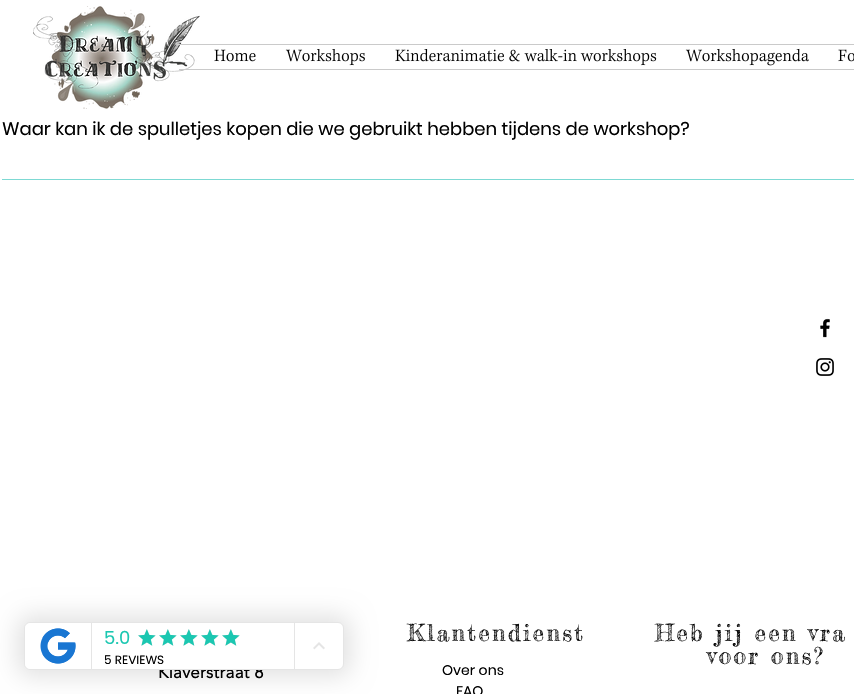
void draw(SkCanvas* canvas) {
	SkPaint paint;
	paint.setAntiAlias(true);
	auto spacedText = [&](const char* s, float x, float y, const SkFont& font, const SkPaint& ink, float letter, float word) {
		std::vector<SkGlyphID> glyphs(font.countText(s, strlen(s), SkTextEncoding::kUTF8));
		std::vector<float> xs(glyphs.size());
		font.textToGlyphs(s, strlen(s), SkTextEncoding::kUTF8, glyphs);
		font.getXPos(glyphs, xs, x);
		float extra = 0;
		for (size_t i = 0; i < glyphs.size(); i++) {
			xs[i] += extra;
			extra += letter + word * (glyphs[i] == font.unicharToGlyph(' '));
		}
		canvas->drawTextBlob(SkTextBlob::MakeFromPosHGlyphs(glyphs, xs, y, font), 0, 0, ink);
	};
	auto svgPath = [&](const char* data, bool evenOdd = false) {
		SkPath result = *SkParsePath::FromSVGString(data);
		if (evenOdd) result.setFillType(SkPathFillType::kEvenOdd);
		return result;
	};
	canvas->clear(0xffffffff);
	canvas->drawImageRect(SkImages::DeferredFromEncodedData(SkData::MakeFromFileName("img1.png")), SkRect::MakeXYWH(33, 6, 167, 103), SkSamplingOptions());
	paint.setColor(0xffcacaca);
	canvas->drawRect(SkRect::MakeXYWH(179, 44, 675, 1), paint);
	canvas->drawRect(SkRect::MakeXYWH(179, 69, 675, 1), paint);
	canvas->drawImageRect(SkImages::DeferredFromEncodedData(SkData::MakeFromFileName("img2.png")), SkRect::MakeXYWH(214, 49, 42, 13), SkSamplingOptions());
	canvas->drawImageRect(SkImages::DeferredFromEncodedData(SkData::MakeFromFileName("img3.png")), SkRect::MakeXYWH(285, 49, 80, 17), SkSamplingOptions());
	canvas->drawImageRect(SkImages::DeferredFromEncodedData(SkData::MakeFromFileName("img4.png")), SkRect::MakeXYWH(395, 49, 262, 17), SkSamplingOptions());
	canvas->drawImageRect(SkImages::DeferredFromEncodedData(SkData::MakeFromFileName("img5.png")), SkRect::MakeXYWH(685, 48, 124, 18), SkSamplingOptions());
	canvas->drawImageRect(SkImages::DeferredFromEncodedData(SkData::MakeFromFileName("img6.png")), SkRect::MakeXYWH(838, 49, 16, 13), SkSamplingOptions());
	SkFont f1(fontMgr->matchFamilyStyle("Poppins", SkFontStyle::Normal()), 18);
	f1.setSubpixel(true);
	paint.setColor(0xff000000);
	canvas->drawString("Waar kan ik de spulletjes kopen die we gebruikt hebben tijdens de workshop?", 2, 135, f1, paint);
	paint.setColor(0xff7dd9d3);
	canvas->drawRect(SkRect::MakeXYWH(2, 179, 852, 1), paint);
	canvas->drawImageRect(SkImages::DeferredFromEncodedData(SkData::MakeFromFileName("img7.png")), SkRect::MakeXYWH(820, 318, 10, 20), SkSamplingOptions());
	canvas->drawImageRect(SkImages::DeferredFromEncodedData(SkData::MakeFromFileName("img8.png")), SkRect::MakeXYWH(816, 358, 18, 18), SkSamplingOptions());
	SkFont f2(fontMgr->matchFamilyStyle("Fredericka the Great", SkFontStyle::Normal()), 23);
	f2.setSubpixel(true);
	paint.setColor(0xff000000);
	spacedText("Klantendienst", 407, 641, f2, paint, 2.25, 0);
	SkFont f3(fontMgr->matchFamilyStyle("Poppins", SkFontStyle::Normal()), 14);
	f3.setSubpixel(true);
	canvas->drawString("Over ons", 442, 675, f3, paint);
	canvas->drawString("FAQ", 456, 696, f3, paint);
	spacedText("Heb jij een vra", 655, 641, f2, paint, 2.25, 0);
	spacedText("voor ons?", 707, 664, f2, paint, 2.25, 0);
	SkFont f4(fontMgr->matchFamilyStyle("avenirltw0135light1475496", SkFontStyle::Bold()), 17);
	f4.setSubpixel(true);
	spacedText("Klaverstraat 8", 158, 678, f4, paint, 0.3, 0);
	paint.setColor(0x1f000000);
	paint.setMaskFilter(SkMaskFilter::MakeBlur(kNormal_SkBlurStyle, 12));
	canvas->drawRoundRect(SkRect::MakeXYWH(18, 616, 332, 60), 12, 12, paint);
	paint.setMaskFilter(nullptr);
	paint.setColor(0xffffffff);
	canvas->drawRoundRect(SkRect::MakeXYWH(24.5, 622.5, 319, 47), 5.5, 5.5, paint);
	paint.setStroke(true);
	paint.setStrokeWidth(1);
	paint.setColor(0xffe5e5e5);
	canvas->drawRoundRect(SkRect::MakeXYWH(24.5, 622.5, 319, 47), 5.5, 5.5, paint);
	paint.setStroke(false);
	paint.setColor(0xffffffff);
	canvas->drawPath(svgPath("M31 623H92V669H31C27.5 669 25 666.5 25 663V629C25 625.5 27.5 623 31 623Z"), paint);
	paint.setColor(0xffe5e5e5);
	canvas->drawRect(SkRect::MakeXYWH(91, 623, 1, 46), paint);
	canvas->drawImageRect(SkImages::DeferredFromEncodedData(SkData::MakeFromFileName("img9.png")), SkRect::MakeXYWH(40, 628, 36, 36), SkSamplingOptions());
	canvas->drawRect(SkRect::MakeXYWH(294, 623, 1, 46), paint);
	SkFont f5(fontMgr->matchFamilyStyle("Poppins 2", SkFontStyle::Normal()), 18);
	f5.setSubpixel(true);
	paint.setColor(0xff1bc7b1);
	canvas->drawString("5.0", 104, 644, f5, paint);
	canvas->drawImageRect(SkImages::DeferredFromEncodedData(SkData::MakeFromFileName("img10.png")), SkRect::MakeXYWH(138, 629, 18, 17), SkSamplingOptions());
	canvas->drawImageRect(SkImages::DeferredFromEncodedData(SkData::MakeFromFileName("img11.png")), SkRect::MakeXYWH(138, 629, 18, 17), SkSamplingOptions());
	canvas->drawImageRect(SkImages::DeferredFromEncodedData(SkData::MakeFromFileName("img10.png")), SkRect::MakeXYWH(159, 629, 18, 17), SkSamplingOptions());
	canvas->drawImageRect(SkImages::DeferredFromEncodedData(SkData::MakeFromFileName("img11.png")), SkRect::MakeXYWH(159, 629, 18, 17), SkSamplingOptions());
	canvas->drawImageRect(SkImages::DeferredFromEncodedData(SkData::MakeFromFileName("img10.png")), SkRect::MakeXYWH(180, 629, 18, 17), SkSamplingOptions());
	canvas->drawImageRect(SkImages::DeferredFromEncodedData(SkData::MakeFromFileName("img11.png")), SkRect::MakeXYWH(180, 629, 18, 17), SkSamplingOptions());
	canvas->drawImageRect(SkImages::DeferredFromEncodedData(SkData::MakeFromFileName("img10.png")), SkRect::MakeXYWH(201, 629, 18, 17), SkSamplingOptions());
	canvas->drawImageRect(SkImages::DeferredFromEncodedData(SkData::MakeFromFileName("img11.png")), SkRect::MakeXYWH(201, 629, 18, 17), SkSamplingOptions());
	canvas->drawImageRect(SkImages::DeferredFromEncodedData(SkData::MakeFromFileName("img10.png")), SkRect::MakeXYWH(222, 629, 18, 17), SkSamplingOptions());
	canvas->drawImageRect(SkImages::DeferredFromEncodedData(SkData::MakeFromFileName("img11.png")), SkRect::MakeXYWH(222, 629, 18, 17), SkSamplingOptions());
	SkFont f6(fontMgr->matchFamilyStyle("Poppins 2", SkFontStyle::Normal()), 12);
	f6.setSubpixel(true);
	paint.setColor(0xff000000);
	canvas->drawString("5 REVIEWS", 104, 664, f6, paint);
	canvas->drawImageRect(SkImages::DeferredFromEncodedData(SkData::MakeFromFileName("img12.png")), SkRect::MakeXYWH(313, 642, 12, 8), SkSamplingOptions());
}
